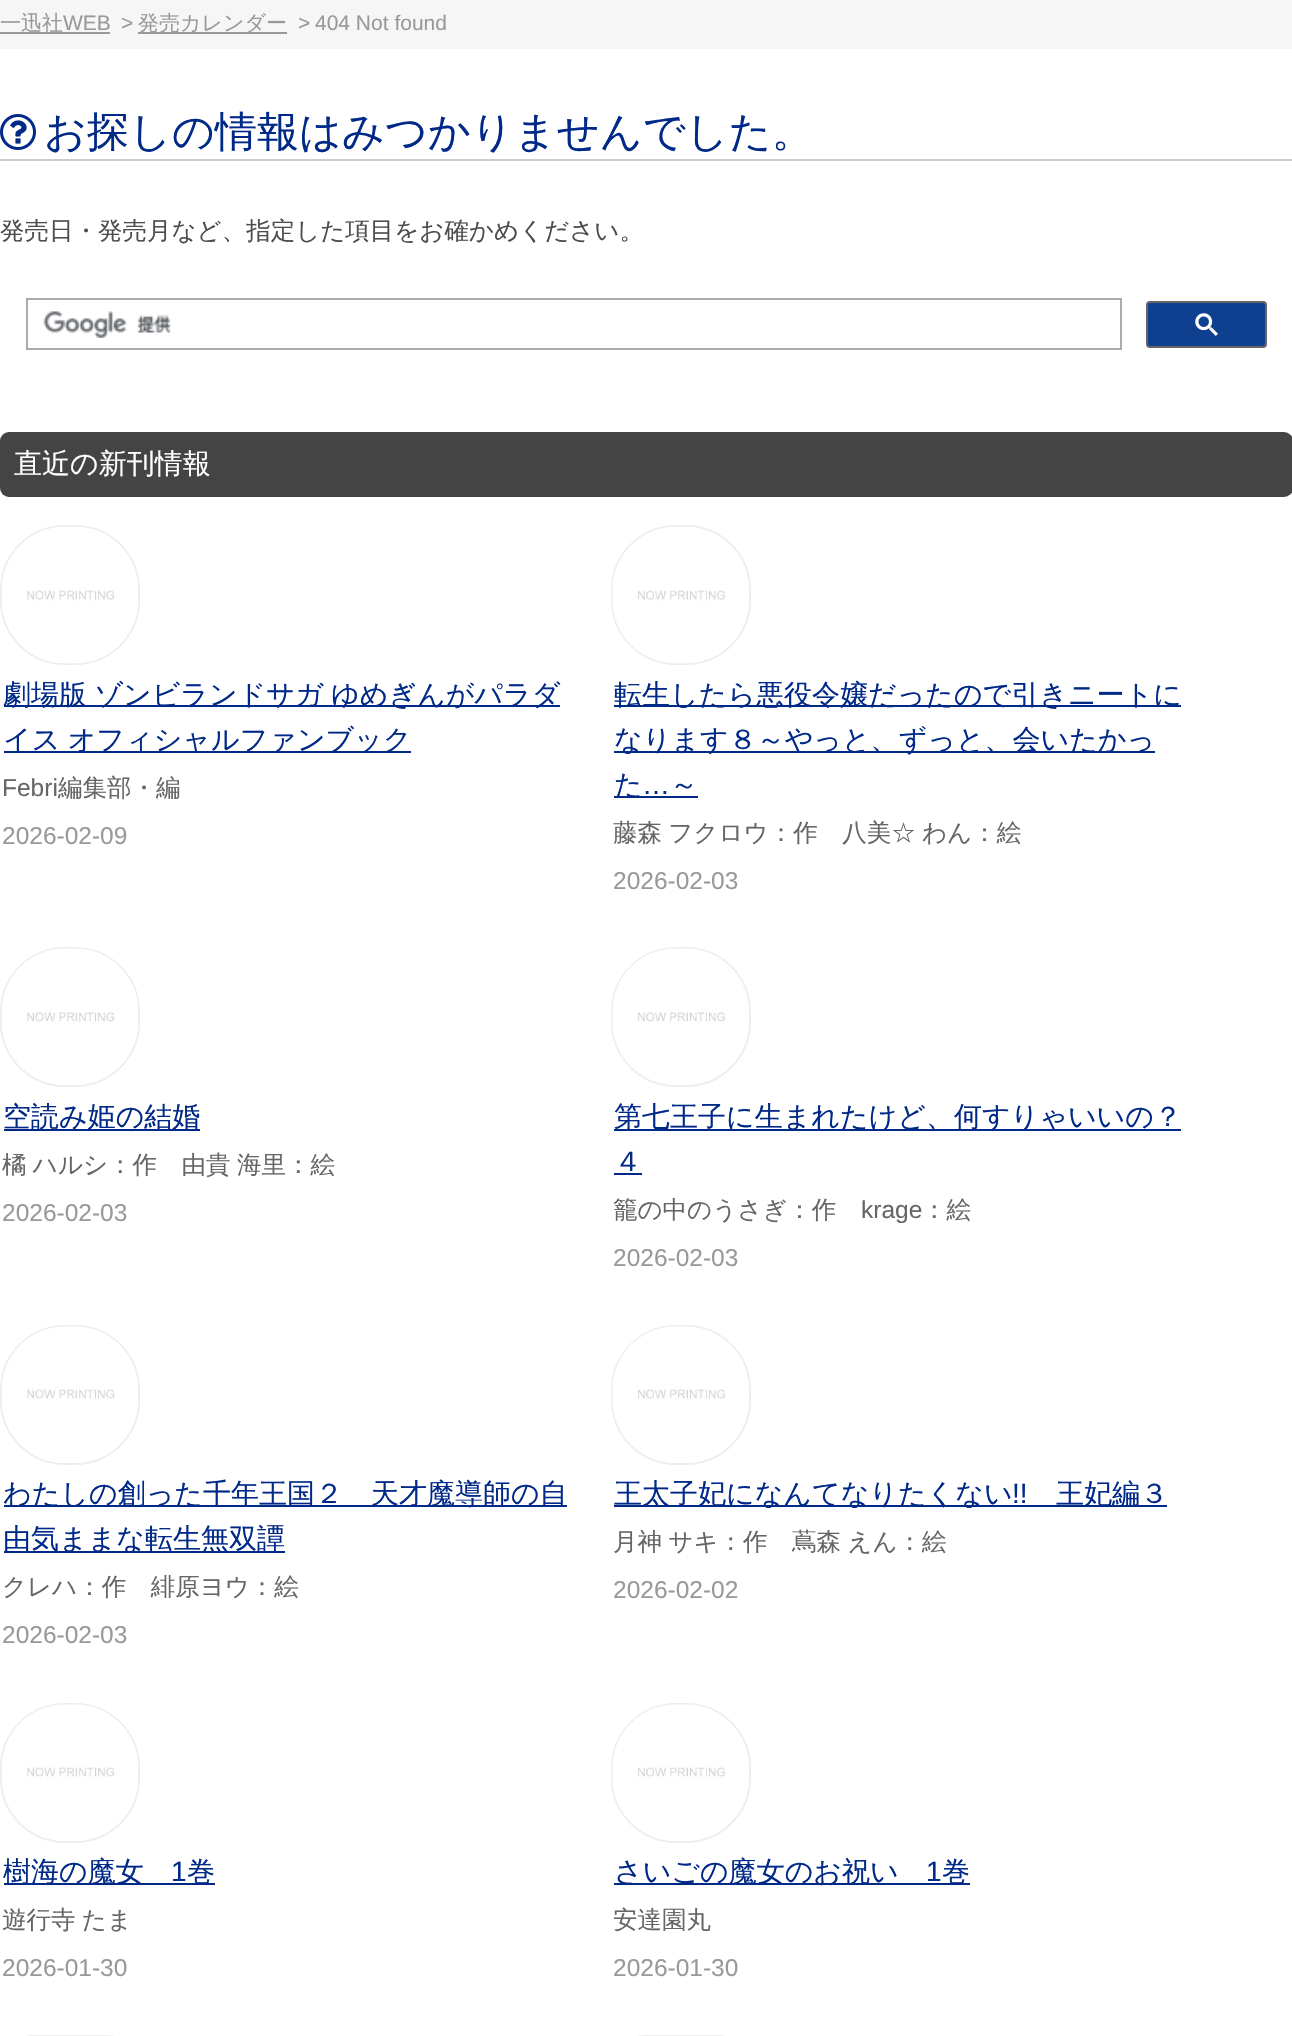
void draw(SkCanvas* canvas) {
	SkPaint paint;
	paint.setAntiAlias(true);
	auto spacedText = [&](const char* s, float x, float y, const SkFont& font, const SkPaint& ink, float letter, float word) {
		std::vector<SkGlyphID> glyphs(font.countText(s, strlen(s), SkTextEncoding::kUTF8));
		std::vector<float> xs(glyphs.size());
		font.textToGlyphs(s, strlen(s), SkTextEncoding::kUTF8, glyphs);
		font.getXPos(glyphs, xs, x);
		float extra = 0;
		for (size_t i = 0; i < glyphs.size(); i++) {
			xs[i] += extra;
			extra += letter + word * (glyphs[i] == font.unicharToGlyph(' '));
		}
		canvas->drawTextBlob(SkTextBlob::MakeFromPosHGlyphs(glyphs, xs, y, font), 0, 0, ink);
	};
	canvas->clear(0xffffffff);
	paint.setColor(0xfff6f6f6);
	canvas->drawRect(SkRect::MakeXYWH(0, 0, 1292, 49), paint);
	paint.setColor(0xff999999);
	canvas->drawRect(SkRect::MakeXYWH(0, 32, 110, 2), paint);
	SkFont f1(fontMgr->matchFamilyStyle("WenQuanYi Zen Hei", SkFontStyle(500, SkFontStyle::kNormal_Width, SkFontStyle::kUpright_Slant)), 21);
	f1.setSubpixel(true);
	canvas->drawString("一迅社", 0, 30, f1, paint);
	SkFont f2(fontMgr->matchFamilyStyle("Liberation Sans", SkFontStyle::Normal()), 21);
	f2.setSubpixel(true);
	canvas->drawString("WEB", 63, 30, f2, paint);
	canvas->drawString(">", 121, 30, f2, paint);
	canvas->drawRect(SkRect::MakeXYWH(138, 32, 149, 2), paint);
	canvas->drawString("発売カレンダー", 138, 30, f1, paint);
	canvas->drawString(">", 298, 30, f2, paint);
	canvas->drawString("404 Not found", 315, 30, f2, paint);
	paint.setColor(0xffcccccc);
	canvas->drawRect(SkRect::MakeXYWH(0, 159, 1292, 2), paint);
	canvas->drawImageRect(SkImages::DeferredFromEncodedData(SkData::MakeFromFileName("img1.png")), SkRect::MakeXYWH(0, 114, 36, 36), SkSamplingOptions());
	SkFont f3(fontMgr->matchFamilyStyle("WenQuanYi Zen Hei", SkFontStyle(500, SkFontStyle::kNormal_Width, SkFontStyle::kUpright_Slant)), 42);
	f3.setSubpixel(true);
	paint.setColor(0xff002988);
	canvas->drawString("お探しの情報はみつかりませんでした。", 44, 146, f3, paint);
	SkFont f4(fontMgr->matchFamilyStyle("WenQuanYi Zen Hei", SkFontStyle(500, SkFontStyle::kNormal_Width, SkFontStyle::kUpright_Slant)), 24.5);
	f4.setSubpixel(true);
	paint.setColor(0xff4d4d4d);
	canvas->drawString("発売日・発売月など、指定した項目をお確かめください。", 0, 239, f4, paint);
	paint.setStroke(true);
	paint.setStrokeWidth(2);
	paint.setColor(0xffaaaaaa);
	canvas->drawRect(SkRect::MakeXYWH(27, 299, 1094, 50), paint);
	canvas->drawImageRect(SkImages::DeferredFromEncodedData(SkData::MakeFromFileName("img2.png")), SkRect::MakeXYWH(43, 311, 129, 27), SkSamplingOptions());
	paint.setStroke(false);
	paint.setColor(0xff0f3f8f);
	canvas->drawRoundRect(SkRect::MakeXYWH(1147, 302, 119, 45), 3, 3, paint);
	paint.setStroke(true);
	paint.setColor(0xff666666);
	canvas->drawRoundRect(SkRect::MakeXYWH(1147, 302, 119, 45), 3, 3, paint);
	canvas->drawImageRect(SkImages::DeferredFromEncodedData(SkData::MakeFromFileName("img3.png")), SkRect::MakeXYWH(1195, 313, 23, 23), SkSamplingOptions());
	paint.setStroke(false);
	paint.setColor(0xff444444);
	canvas->drawRoundRect(SkRect::MakeXYWH(0, 432, 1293, 65), 9, 9, paint);
	SkFont f5(fontMgr->matchFamilyStyle("WenQuanYi Zen Hei", SkFontStyle(500, SkFontStyle::kNormal_Width, SkFontStyle::kUpright_Slant)), 28);
	f5.setSubpixel(true);
	paint.setColor(0xffffffff);
	canvas->drawString("直近の新刊情報", 14, 473, f5, paint);
	paint.setStroke(true);
	paint.setColor(0xffeeeeee);
	canvas->drawRoundRect(SkRect::MakeXYWH(1, 526, 138, 138), 64, 64, paint);
	canvas->drawImageRect(SkImages::DeferredFromEncodedData(SkData::MakeFromFileName("img4.png")), SkRect::MakeXYWH(2, 526, 136, 138), SkSamplingOptions());
	paint.setStroke(false);
	paint.setColor(0xff002988);
	canvas->drawRect(SkRect::MakeXYWH(4, 705, 556, 2), paint);
	spacedText("劇場版 ゾンビランドサガ ゆめぎんがパラダ", 3, 704, f5, paint, 0, -1);
	canvas->drawRect(SkRect::MakeXYWH(4, 751, 407, 2), paint);
	spacedText("イス オフィシャルファンブック", 3, 749, f5, paint, 0, -1);
	SkFont f6(fontMgr->matchFamilyStyle("Liberation Sans", SkFontStyle::Normal()), 24.5);
	f6.setSubpixel(true);
	paint.setColor(0xff666666);
	canvas->drawString("Febri", 2, 796, f6, paint);
	canvas->drawString("編集部・編", 58, 796, f4, paint);
	paint.setColor(0xff999999);
	canvas->drawString("2026-02-09", 2, 844, f6, paint);
	paint.setStroke(true);
	paint.setColor(0xffeeeeee);
	canvas->drawRoundRect(SkRect::MakeXYWH(612, 526, 138, 138), 64, 64, paint);
	canvas->drawImageRect(SkImages::DeferredFromEncodedData(SkData::MakeFromFileName("img5.png")), SkRect::MakeXYWH(612, 526, 137, 138), SkSamplingOptions());
	paint.setStroke(false);
	paint.setColor(0xff002988);
	canvas->drawRect(SkRect::MakeXYWH(614, 705, 567, 2), paint);
	canvas->drawString("転生したら悪役令嬢だったので引きニートに", 614, 704, f5, paint);
	canvas->drawRect(SkRect::MakeXYWH(614, 751, 541, 2), paint);
	canvas->drawString("なります８～やっと、ずっと、会いたかっ", 614, 749, f5, paint);
	canvas->drawRect(SkRect::MakeXYWH(614, 796, 84, 2), paint);
	canvas->drawString("た", 614, 794, f5, paint);
	canvas->drawString("～", 670, 794, f5, paint);
	SkFont f7(fontMgr->matchFamilyStyle("Liberation Sans", SkFontStyle::Normal()), 28);
	f7.setSubpixel(true);
	canvas->drawString("…", 642, 794, f7, paint);
	paint.setColor(0xff666666);
	spacedText("藤森 フクロウ：作　八美☆ わん：絵", 613, 841, f4, paint, 0, -1);
	paint.setColor(0xff999999);
	canvas->drawString("2026-02-03", 613, 889, f6, paint);
	paint.setStroke(true);
	paint.setColor(0xffeeeeee);
	canvas->drawRoundRect(SkRect::MakeXYWH(1, 948, 138, 138), 64, 64, paint);
	canvas->drawImageRect(SkImages::DeferredFromEncodedData(SkData::MakeFromFileName("img6.png")), SkRect::MakeXYWH(2, 948, 136, 137), SkSamplingOptions());
	paint.setStroke(false);
	paint.setColor(0xff002988);
	canvas->drawRect(SkRect::MakeXYWH(4, 1129, 196, 2), paint);
	canvas->drawString("空読み姫の結婚", 3, 1126, f5, paint);
	paint.setColor(0xff666666);
	spacedText("橘 ハルシ：作　由貴 海里：絵", 2, 1173, f4, paint, 0, -1);
	paint.setColor(0xff999999);
	canvas->drawString("2026-02-03", 2, 1221, f6, paint);
	paint.setStroke(true);
	paint.setColor(0xffeeeeee);
	canvas->drawRoundRect(SkRect::MakeXYWH(612, 948, 138, 138), 64, 64, paint);
	canvas->drawImageRect(SkImages::DeferredFromEncodedData(SkData::MakeFromFileName("img7.png")), SkRect::MakeXYWH(612, 948, 137, 137), SkSamplingOptions());
	paint.setStroke(false);
	paint.setColor(0xff002988);
	canvas->drawRect(SkRect::MakeXYWH(614, 1129, 567, 2), paint);
	canvas->drawString("第七王子に生まれたけど、何すりゃいいの？", 614, 1126, f5, paint);
	canvas->drawString("４", 614, 1171, f5, paint);
	canvas->drawRect(SkRect::MakeXYWH(614, 1173, 28, 2), paint);
	paint.setColor(0xff666666);
	canvas->drawString("籠の中のうさぎ：作", 613, 1218, f4, paint);
	canvas->drawString("krage", 861, 1218, f6, paint);
	canvas->drawString("：絵", 922, 1218, f4, paint);
	paint.setColor(0xff999999);
	canvas->drawString("2026-02-03", 613, 1266, f6, paint);
	paint.setStroke(true);
	paint.setColor(0xffeeeeee);
	canvas->drawRoundRect(SkRect::MakeXYWH(1, 1326, 138, 138), 64, 64, paint);
	canvas->drawImageRect(SkImages::DeferredFromEncodedData(SkData::MakeFromFileName("img8.png")), SkRect::MakeXYWH(2, 1326, 136, 137), SkSamplingOptions());
	paint.setStroke(false);
	paint.setColor(0xff002988);
	canvas->drawRect(SkRect::MakeXYWH(4, 1505, 563, 2), paint);
	canvas->drawString("わたしの創った千年王国２　天才魔導師の自", 3, 1503, f5, paint);
	canvas->drawRect(SkRect::MakeXYWH(4, 1551, 281, 2), paint);
	canvas->drawString("由気ままな転生無双譚", 3, 1548, f5, paint);
	paint.setColor(0xff666666);
	canvas->drawString("クレハ：作　緋原ヨウ：絵", 2, 1595, f4, paint);
	paint.setColor(0xff999999);
	canvas->drawString("2026-02-03", 2, 1643, f6, paint);
	paint.setStroke(true);
	paint.setColor(0xffeeeeee);
	canvas->drawRoundRect(SkRect::MakeXYWH(612, 1326, 138, 138), 64, 64, paint);
	canvas->drawImageRect(SkImages::DeferredFromEncodedData(SkData::MakeFromFileName("img9.png")), SkRect::MakeXYWH(612, 1326, 137, 137), SkSamplingOptions());
	paint.setStroke(false);
	paint.setColor(0xff002988);
	canvas->drawRect(SkRect::MakeXYWH(614, 1505, 553, 2), paint);
	canvas->drawString("王太子妃になんてなりたくない", 614, 1503, f5, paint);
	canvas->drawString("!!", 1012, 1503, f7, paint);
	canvas->drawString("王妃編３", 1056, 1503, f5, paint);
	paint.setColor(0xff666666);
	spacedText("月神 サキ：作　蔦森 えん：絵", 613, 1550, f4, paint, 0, -1);
	paint.setColor(0xff999999);
	canvas->drawString("2026-02-02", 613, 1598, f6, paint);
	paint.setStroke(true);
	paint.setColor(0xffeeeeee);
	canvas->drawRoundRect(SkRect::MakeXYWH(1, 1704, 138, 138), 64, 64, paint);
	canvas->drawImageRect(SkImages::DeferredFromEncodedData(SkData::MakeFromFileName("img8.png")), SkRect::MakeXYWH(2, 1704, 136, 137), SkSamplingOptions());
	paint.setStroke(false);
	paint.setColor(0xff002988);
	canvas->drawRect(SkRect::MakeXYWH(4, 1883, 211, 2), paint);
	canvas->drawString("樹海の魔女", 3, 1881, f5, paint);
	canvas->drawString("1", 171, 1881, f7, paint);
	canvas->drawString("巻", 187, 1881, f5, paint);
	paint.setColor(0xff666666);
	spacedText("遊行寺 たま", 2, 1928, f4, paint, 0, -1);
	paint.setColor(0xff999999);
	canvas->drawString("2026-01-30", 2, 1976, f6, paint);
	paint.setStroke(true);
	paint.setColor(0xffeeeeee);
	canvas->drawRoundRect(SkRect::MakeXYWH(612, 1704, 138, 138), 64, 64, paint);
	canvas->drawImageRect(SkImages::DeferredFromEncodedData(SkData::MakeFromFileName("img10.png")), SkRect::MakeXYWH(612, 1704, 137, 137), SkSamplingOptions());
	paint.setStroke(false);
	paint.setColor(0xff002988);
	canvas->drawRect(SkRect::MakeXYWH(614, 1883, 356, 2), paint);
	canvas->drawString("さいごの魔女のお祝い", 614, 1881, f5, paint);
	canvas->drawString("1", 926, 1881, f7, paint);
	canvas->drawString("巻", 942, 1881, f5, paint);
	paint.setColor(0xff666666);
	canvas->drawString("安達園丸", 613, 1928, f4, paint);
	paint.setColor(0xff999999);
	canvas->drawString("2026-01-30", 613, 1976, f6, paint);
	paint.setStroke(true);
	paint.setColor(0xffeeeeee);
	canvas->drawRoundRect(SkRect::MakeXYWH(1, 2036, 138, 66), 64, 64, paint);
	canvas->drawRoundRect(SkRect::MakeXYWH(612, 2036, 138, 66), 64, 64, paint);
}
